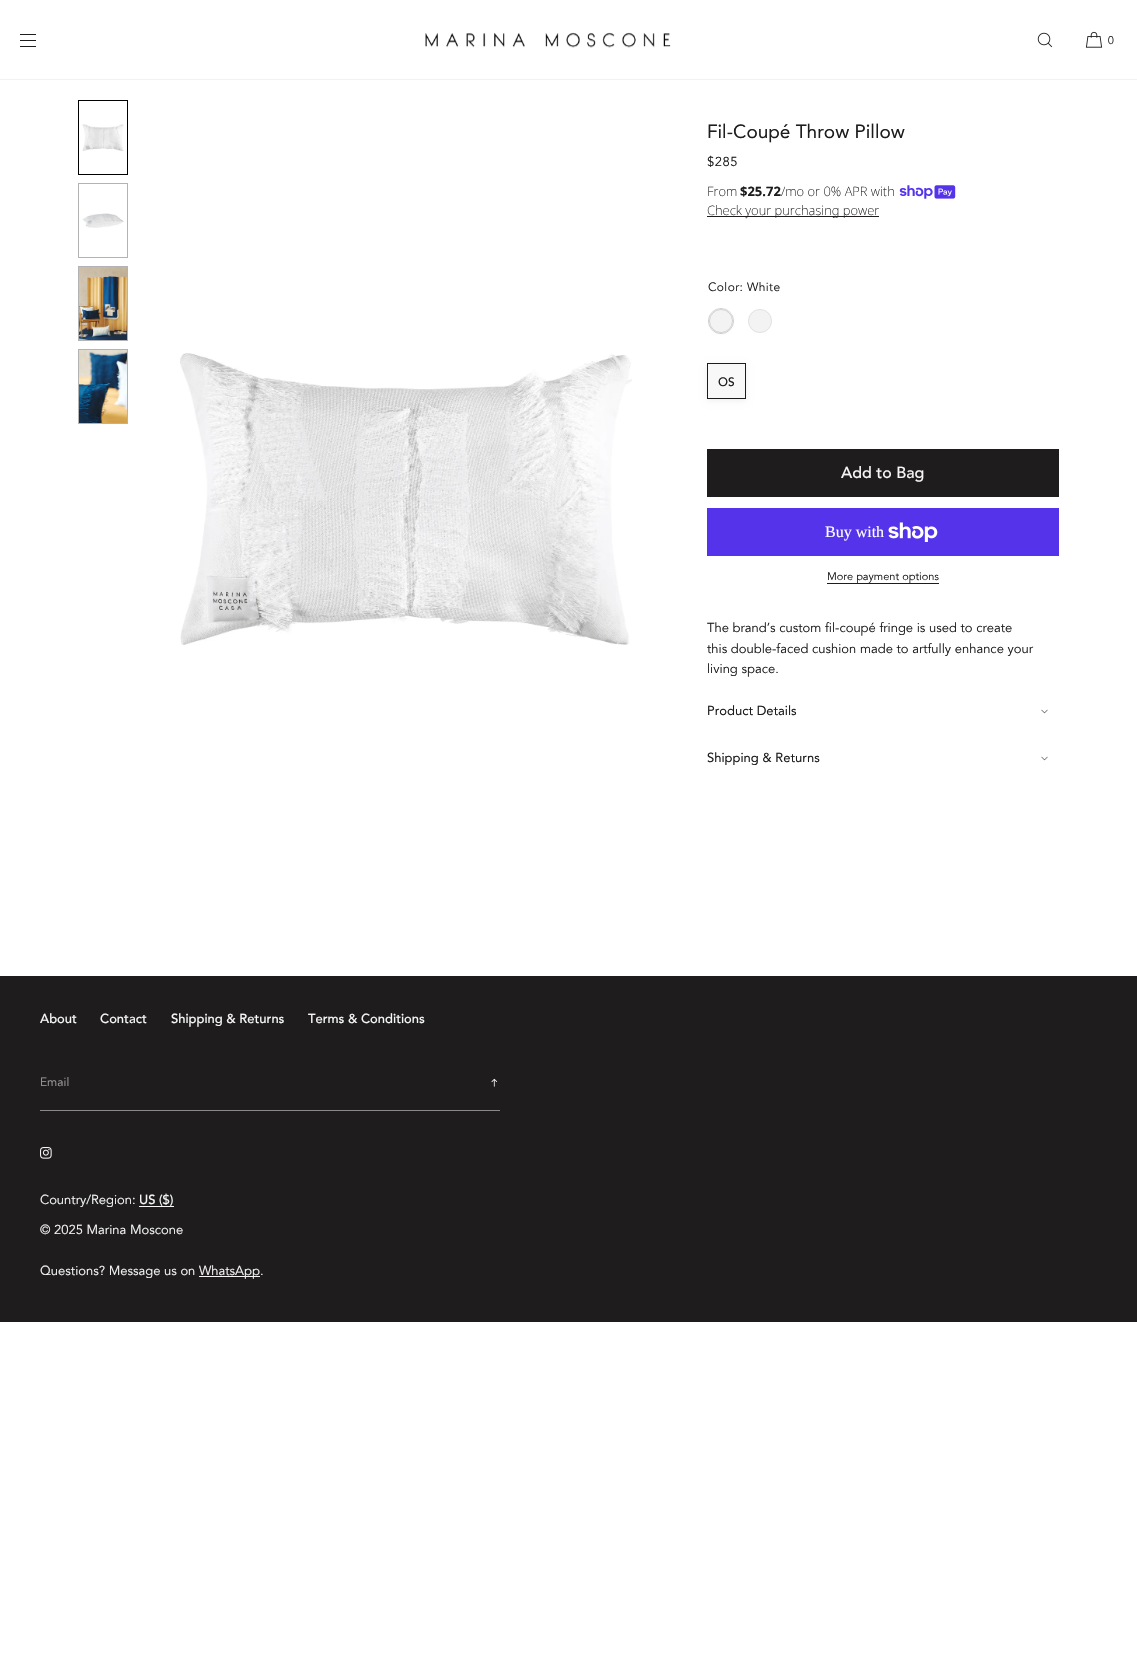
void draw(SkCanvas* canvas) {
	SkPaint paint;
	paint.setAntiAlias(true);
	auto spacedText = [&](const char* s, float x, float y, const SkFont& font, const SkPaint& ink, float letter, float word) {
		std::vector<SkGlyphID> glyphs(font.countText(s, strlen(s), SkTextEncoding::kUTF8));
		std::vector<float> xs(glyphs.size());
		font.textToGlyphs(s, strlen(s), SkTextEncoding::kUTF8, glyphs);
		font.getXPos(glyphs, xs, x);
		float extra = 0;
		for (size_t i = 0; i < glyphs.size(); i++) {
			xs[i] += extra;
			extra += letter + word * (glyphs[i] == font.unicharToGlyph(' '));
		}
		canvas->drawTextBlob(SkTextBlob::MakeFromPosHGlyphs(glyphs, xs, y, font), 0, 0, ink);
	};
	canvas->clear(0xffffffff);
	paint.setColor(0xfff2f2f2);
	canvas->drawRect(SkRect::MakeXYWH(0, 79, 1137, 1), paint);
	paint.setColor(0xff1e1c1c);
	canvas->drawRect(SkRect::MakeXYWH(20, 34, 16, 1), paint);
	canvas->drawRect(SkRect::MakeXYWH(20, 40, 16, 1), paint);
	canvas->drawRect(SkRect::MakeXYWH(20, 46, 16, 1), paint);
	canvas->drawImageRect(SkImages::DeferredFromEncodedData(SkData::MakeFromFileName("img1.png")), SkRect::MakeXYWH(425, 32, 246, 16), SkSamplingOptions());
	canvas->drawImageRect(SkImages::DeferredFromEncodedData(SkData::MakeFromFileName("img2.png")), SkRect::MakeXYWH(1037, 32, 16, 16), SkSamplingOptions());
	canvas->drawImageRect(SkImages::DeferredFromEncodedData(SkData::MakeFromFileName("img3.png")), SkRect::MakeXYWH(1085, 31, 18, 17), SkSamplingOptions());
	SkFont f1(fontMgr->matchFamilyStyle("Avenir", SkFontStyle(300, SkFontStyle::kNormal_Width, SkFontStyle::kUpright_Slant)), 11);
	f1.setSubpixel(true);
	canvas->drawString("0", 1108, 44, f1, paint);
	paint.setStroke(true);
	paint.setStrokeWidth(1);
	paint.setColor(0xff000000);
	canvas->drawRect(SkRect::MakeXYWH(78.5, 100.5, 49, 74), paint);
	canvas->drawImageRect(SkImages::DeferredFromEncodedData(SkData::MakeFromFileName("img4.png")), SkRect::MakeXYWH(82, 124, 42, 27), SkSamplingOptions());
	paint.setColor(0xffb3b3b3);
	canvas->drawRect(SkRect::MakeXYWH(78.5, 183.5, 49, 74), paint);
	canvas->drawImageRect(SkImages::DeferredFromEncodedData(SkData::MakeFromFileName("img5.png")), SkRect::MakeXYWH(82, 213, 42, 15), SkSamplingOptions());
	canvas->drawRect(SkRect::MakeXYWH(78.5, 266.5, 49, 74), paint);
	canvas->drawImageRect(SkImages::DeferredFromEncodedData(SkData::MakeFromFileName("img6.png")), SkRect::MakeXYWH(79, 267, 48, 73), SkSamplingOptions());
	canvas->drawRect(SkRect::MakeXYWH(78.5, 349.5, 49, 74), paint);
	canvas->drawImageRect(SkImages::DeferredFromEncodedData(SkData::MakeFromFileName("img7.png")), SkRect::MakeXYWH(79, 350, 48, 73), SkSamplingOptions());
	canvas->drawImageRect(SkImages::DeferredFromEncodedData(SkData::MakeFromFileName("img8.png")), SkRect::MakeXYWH(180, 353, 452, 292), SkSamplingOptions());
	SkFont f2(fontMgr->matchFamilyStyle("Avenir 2", SkFontStyle::Normal()), 19);
	f2.setSubpixel(true);
	paint.setStroke(false);
	paint.setColor(0xff1e1c1c);
	canvas->drawString("Fil-Coupé Throw Pillow", 707, 138, f2, paint);
	SkFont f3(fontMgr->matchFamilyStyle("Avenir", SkFontStyle::Normal()), 13);
	f3.setSubpixel(true);
	spacedText("$285", 707, 166, f3, paint, 0.5, 0);
	SkFont f4(fontMgr->matchFamilyStyle("Noto Sans", SkFontStyle(200, SkFontStyle::kNormal_Width, SkFontStyle::kUpright_Slant)), 13);
	f4.setSubpixel(true);
	canvas->drawString("From", 707, 196, f4, paint);
	SkFont f5(fontMgr->matchFamilyStyle("Noto Sans", SkFontStyle::Bold()), 13);
	f5.setSubpixel(true);
	canvas->drawString("$25.72", 740, 196, f5, paint);
	canvas->drawString("/mo or 0% APR with", 781, 196, f4, paint);
	canvas->drawImageRect(SkImages::DeferredFromEncodedData(SkData::MakeFromFileName("img9.png")), SkRect::MakeXYWH(899, 185, 57, 14), SkSamplingOptions());
	canvas->drawRect(SkRect::MakeXYWH(707, 216, 172, 1), paint);
	canvas->drawString("Check your purchasing power", 707, 215, f4, paint);
	SkFont f6(fontMgr->matchFamilyStyle("Avenir", SkFontStyle::Normal()), 12);
	f6.setSubpixel(true);
	spacedText("Color: White", 708, 291, f6, paint, 0.4, 0);
	paint.setStroke(true);
	paint.setColor(0xffd2d2d2);
	canvas->drawCircle(721, 321, 12.5, paint);
	paint.setStroke(false);
	paint.setColor(0x0d000000);
	paint.setMaskFilter(SkMaskFilter::MakeBlur(kNormal_SkBlurStyle, 1));
	canvas->drawRoundRect(SkRect::MakeXYWH(709, 310, 24, 24), 12, 12, paint);
	paint.setMaskFilter(nullptr);
	paint.setColor(0xfff3f3f3);
	canvas->drawCircle(721, 321, 12, paint);
	paint.setStroke(true);
	paint.setColor(0x261e1c1c);
	canvas->drawCircle(721, 321, 11.5, paint);
	paint.setStroke(false);
	paint.setColor(0xfff3f3f3);
	canvas->drawCircle(760, 321, 12, paint);
	paint.setStroke(true);
	paint.setColor(0x141e1c1c);
	canvas->drawCircle(760, 321, 11.5, paint);
	paint.setStroke(false);
	paint.setColor(0x0f000000);
	paint.setMaskFilter(SkMaskFilter::MakeBlur(kNormal_SkBlurStyle, 3));
	canvas->drawRect(SkRect::MakeXYWH(707, 365, 39, 36), paint);
	paint.setMaskFilter(nullptr);
	paint.setColor(0xfff8f8f8);
	canvas->drawRect(SkRect::MakeXYWH(708, 366, 37, 32), paint);
	paint.setStroke(true);
	paint.setColor(0xff1e1c1c);
	canvas->drawRect(SkRect::MakeXYWH(707.5, 363.5, 38, 35), paint);
	SkFont f7(fontMgr->matchFamilyStyle("Avenir", SkFontStyle(500, SkFontStyle::kNormal_Width, SkFontStyle::kUpright_Slant)), 12);
	f7.setSubpixel(true);
	paint.setStroke(false);
	canvas->drawString("OS", 718, 386, f7, paint);
	canvas->drawRect(SkRect::MakeXYWH(707, 449, 352, 48), paint);
	SkFont f8(fontMgr->matchFamilyStyle("Avenir", SkFontStyle(500, SkFontStyle::kNormal_Width, SkFontStyle::kUpright_Slant)), 16);
	f8.setSubpixel(true);
	paint.setColor(0xfff6f6f6);
	canvas->drawString("Add to Bag", 841, 478, f8, paint);
	paint.setColor(0xff5433eb);
	canvas->drawRect(SkRect::MakeXYWH(707, 508, 352, 48), paint);
	SkFont f9(fontMgr->matchFamilyStyle("Liberation Serif", SkFontStyle::Normal()), 16);
	f9.setSubpixel(true);
	paint.setColor(0xffffffff);
	canvas->drawString("Buy with", 825, 537, f9, paint);
	canvas->drawImageRect(SkImages::DeferredFromEncodedData(SkData::MakeFromFileName("img10.png")), SkRect::MakeXYWH(888, 522, 50, 20), SkSamplingOptions());
	paint.setColor(0xff1e1c1c);
	canvas->drawRect(SkRect::MakeXYWH(827, 583, 112, 1), paint);
	SkFont f10(fontMgr->matchFamilyStyle("Avenir", SkFontStyle::Normal()), 11);
	f10.setSubpixel(true);
	canvas->drawString("More payment options", 827, 580, f10, paint);
	canvas->drawString("The brand’s custom fil-coupé fringe is used to create", 707, 632, f3, paint);
	canvas->drawString("this double-faced cushion made to artfully enhance your", 707, 653, f3, paint);
	canvas->drawString("living space.", 707, 673, f3, paint);
	SkFont f11(fontMgr->matchFamilyStyle("Avenir 2", SkFontStyle::Normal()), 13);
	f11.setSubpixel(true);
	canvas->drawString("Product Details", 707, 715, f11, paint);
	canvas->drawImageRect(SkImages::DeferredFromEncodedData(SkData::MakeFromFileName("img11.png")), SkRect::MakeXYWH(1041, 709, 7, 5), SkSamplingOptions());
	canvas->drawString("Shipping & Returns", 707, 762, f11, paint);
	canvas->drawImageRect(SkImages::DeferredFromEncodedData(SkData::MakeFromFileName("img11.png")), SkRect::MakeXYWH(1041, 756, 7, 5), SkSamplingOptions());
	canvas->drawRect(SkRect::MakeXYWH(0, 976, 1137, 346), paint);
	SkFont f12(fontMgr->matchFamilyStyle("Avenir", SkFontStyle(500, SkFontStyle::kNormal_Width, SkFontStyle::kUpright_Slant)), 13);
	f12.setSubpixel(true);
	paint.setColor(0xfff6f6f6);
	canvas->drawString("About", 40, 1023, f12, paint);
	canvas->drawString("Contact", 100, 1023, f12, paint);
	canvas->drawString("Shipping & Returns", 171, 1023, f12, paint);
	canvas->drawString("Terms & Conditions", 308, 1023, f12, paint);
	paint.setColor(0xff8a8989);
	canvas->drawRect(SkRect::MakeXYWH(40, 1110, 460, 1), paint);
	paint.setColor(0xffa09f9f);
	canvas->drawString("Email", 40, 1086, f6, paint);
	canvas->drawImageRect(SkImages::DeferredFromEncodedData(SkData::MakeFromFileName("img12.png")), SkRect::MakeXYWH(491, 1078, 7, 9), SkSamplingOptions());
	canvas->drawImageRect(SkImages::DeferredFromEncodedData(SkData::MakeFromFileName("img13.png")), SkRect::MakeXYWH(40, 1147, 12, 12), SkSamplingOptions());
	paint.setColor(0xfff6f6f6);
	canvas->drawString("Country/Region:", 40, 1204, f3, paint);
	canvas->drawString("US ($)", 139, 1204, f12, paint);
	canvas->drawRect(SkRect::MakeXYWH(139, 1206, 35, 1), paint);
	canvas->drawString("© 2025 Marina Moscone", 40, 1234, f3, paint);
	canvas->drawString("Questions? Message us on", 40, 1275, f3, paint);
	canvas->drawRect(SkRect::MakeXYWH(199, 1276, 61, 1), paint);
	canvas->drawString("WhatsApp.", 199, 1275, f3, paint);
}
